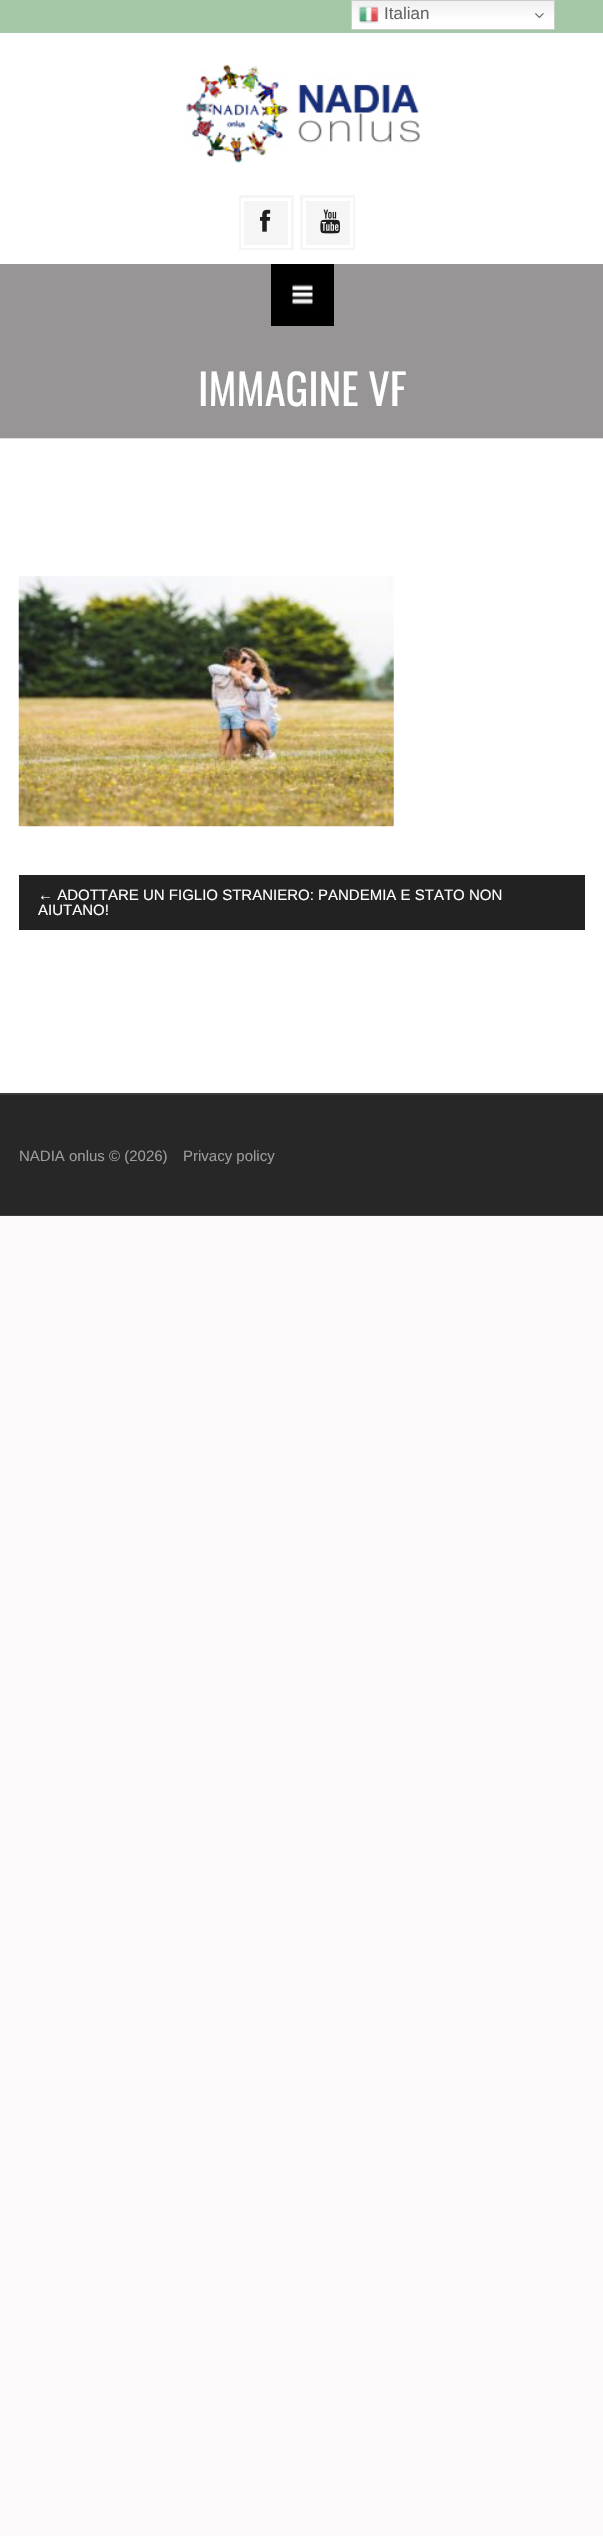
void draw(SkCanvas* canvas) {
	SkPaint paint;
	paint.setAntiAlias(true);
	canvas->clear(0xfffbf9fa);
	paint.setColor(0xffa4c7a6);
	canvas->drawRect(SkRect::MakeXYWH(0, 0, 603, 33), paint);
	{
		const SkColor colors[] = {0xffefefef, 0xffffffff};
		const float stops[] = {0, 0.7};
		const SkPoint ends[] = {{453, 0}, {453, 30}};
		paint.setShader(SkGradientShader::MakeLinear(ends, colors, stops, 2, SkTileMode::kClamp));
		paint.setAlpha(255);
	}
	canvas->drawRect(SkRect::MakeXYWH(352, 1, 202, 28), paint);
	paint.setStroke(true);
	paint.setStrokeWidth(1);
	paint.setShader(nullptr);
	paint.setColor(0xffcccccc);
	canvas->drawRect(SkRect::MakeXYWH(351.5, 0.5, 203, 29), paint);
	canvas->drawImageRect(SkImages::DeferredFromEncodedData(SkData::MakeFromFileName("img1.png")), SkRect::MakeXYWH(358, 6, 21, 18), SkSamplingOptions());
	SkFont f1(fontMgr->matchFamilyStyle("Liberation Sans", SkFontStyle::Normal()), 17);
	f1.setSubpixel(true);
	paint.setStroke(false);
	paint.setColor(0xff666666);
	canvas->drawString("Italian", 384, 19, f1, paint);
	canvas->drawImageRect(SkImages::DeferredFromEncodedData(SkData::MakeFromFileName("img2.png")), SkRect::MakeXYWH(535, 13, 9, 6), SkSamplingOptions());
	paint.setColor(0xffffffff);
	canvas->drawRect(SkRect::MakeXYWH(0, 33, 603, 231), paint);
	canvas->drawImageRect(SkImages::DeferredFromEncodedData(SkData::MakeFromFileName("img3.png")), SkRect::MakeXYWH(186, 64, 235, 99), SkSamplingOptions());
	paint.setStroke(true);
	paint.setStrokeWidth(3);
	paint.setColor(0xfff5f5f5);
	canvas->drawRect(SkRect::MakeXYWH(240.5, 196.5, 52, 52), paint);
	paint.setStroke(false);
	canvas->drawRect(SkRect::MakeXYWH(242.5, 199.5, 47, 47), paint);
	paint.setStroke(true);
	paint.setColor(0xffffffff);
	canvas->drawRect(SkRect::MakeXYWH(242.5, 199.5, 47, 47), paint);
	canvas->drawImageRect(SkImages::DeferredFromEncodedData(SkData::MakeFromFileName("img4.png")), SkRect::MakeXYWH(260, 209, 11, 23), SkSamplingOptions());
	paint.setColor(0xfff5f5f5);
	canvas->drawRect(SkRect::MakeXYWH(301.5, 196.5, 52, 52), paint);
	paint.setStroke(false);
	canvas->drawRect(SkRect::MakeXYWH(304.5, 199.5, 47, 47), paint);
	paint.setStroke(true);
	paint.setColor(0xffffffff);
	canvas->drawRect(SkRect::MakeXYWH(304.5, 199.5, 47, 47), paint);
	canvas->drawImageRect(SkImages::DeferredFromEncodedData(SkData::MakeFromFileName("img5.png")), SkRect::MakeXYWH(320, 209, 20, 25), SkSamplingOptions());
	paint.setStroke(false);
	paint.setColor(0xff979596);
	canvas->drawRect(SkRect::MakeXYWH(0, 264, 603, 174), paint);
	paint.setColor(0xff000000);
	canvas->drawRect(SkRect::MakeXYWH(271, 264, 63, 62), paint);
	canvas->drawImageRect(SkImages::DeferredFromEncodedData(SkData::MakeFromFileName("img6.png")), SkRect::MakeXYWH(292, 284, 21, 21), SkSamplingOptions());
	paint.setColor(0xffdddddd);
	canvas->drawRect(SkRect::MakeXYWH(0, 438, 603, 1), paint);
	SkFont f2(fontMgr->matchFamilyStyle("Oswald", SkFontStyle::Normal()), 42.5);
	f2.setSubpixel(true);
	paint.setColor(0xffffffff);
	canvas->drawString("IMMAGINE VF", 198, 406, f2, paint);
	canvas->drawRect(SkRect::MakeXYWH(0, 439, 603, 654), paint);
	canvas->drawImageRect(SkImages::DeferredFromEncodedData(SkData::MakeFromFileName("img7.png")), SkRect::MakeXYWH(18, 576, 376, 251), SkSamplingOptions());
	paint.setColor(0xff222222);
	canvas->drawRect(SkRect::MakeXYWH(19, 875, 566, 55), paint);
	SkFont f3(fontMgr->matchFamilyStyle("Liberation Sans", SkFontStyle::Normal()), 15);
	f3.setSubpixel(true);
	paint.setColor(0xffffffff);
	canvas->drawString("← ADOTTARE UN FIGLIO STRANIERO: PANDEMIA E STATO NON", 38, 900, f3, paint);
	canvas->drawString("AIUTANO!", 38, 915, f3, paint);
	paint.setColor(0xff3b3b3b);
	canvas->drawRect(SkRect::MakeXYWH(0, 1093, 603, 2), paint);
	canvas->drawRect(SkRect::MakeXYWH(0, 1215, 603, 1), paint);
	paint.setColor(0xff272727);
	canvas->drawRect(SkRect::MakeXYWH(0, 1095, 603, 120), paint);
	paint.setColor(0xff9b9b9b);
	canvas->drawString("NADIA onlus © (2026)", 19, 1161, f3, paint);
	canvas->drawString("Privacy policy", 183, 1161, f3, paint);
}
